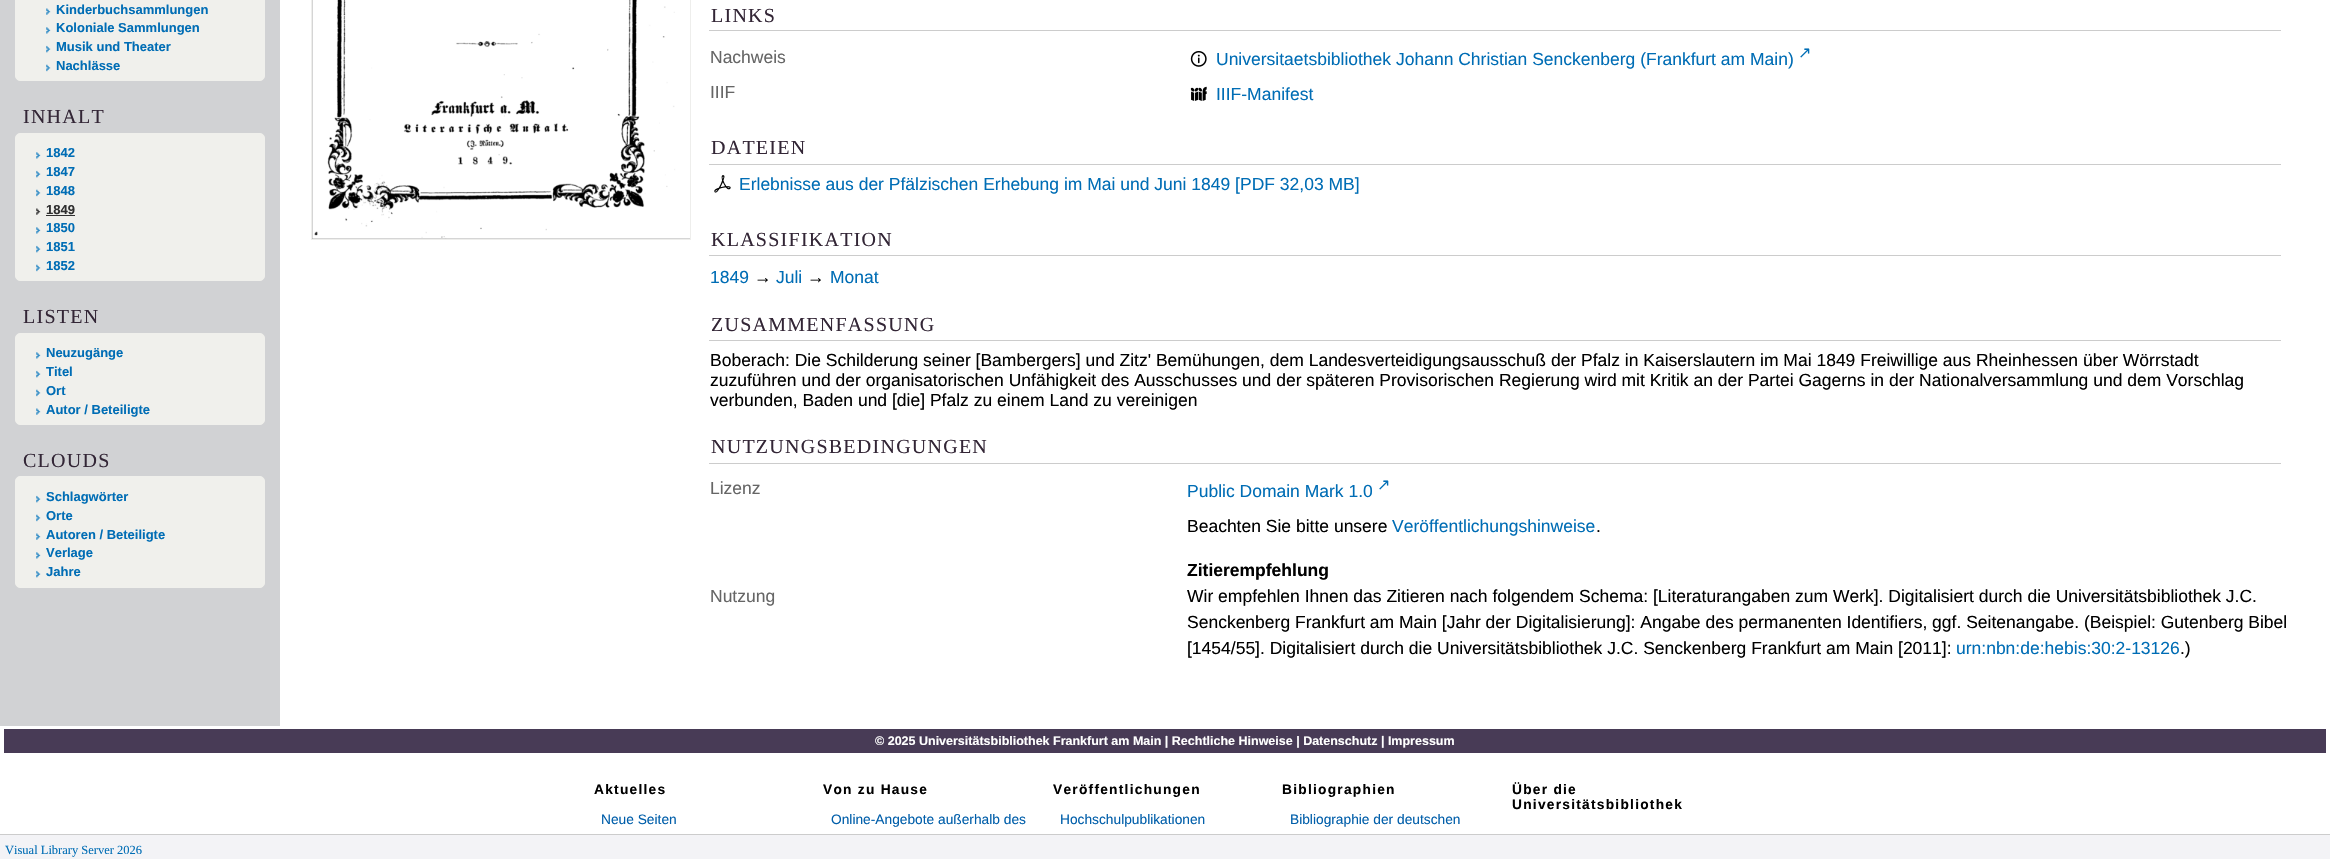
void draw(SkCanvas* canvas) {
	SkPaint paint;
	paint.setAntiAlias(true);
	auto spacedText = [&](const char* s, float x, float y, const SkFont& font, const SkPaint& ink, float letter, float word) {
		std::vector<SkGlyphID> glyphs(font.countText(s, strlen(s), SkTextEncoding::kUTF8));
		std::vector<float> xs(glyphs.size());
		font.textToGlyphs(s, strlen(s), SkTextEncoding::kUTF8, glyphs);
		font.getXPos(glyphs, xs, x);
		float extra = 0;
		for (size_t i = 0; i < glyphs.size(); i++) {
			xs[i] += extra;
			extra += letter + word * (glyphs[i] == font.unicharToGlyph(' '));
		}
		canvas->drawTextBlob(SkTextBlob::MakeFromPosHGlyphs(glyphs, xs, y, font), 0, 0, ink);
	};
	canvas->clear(0xffffffff);
	paint.setColor(0xffd1d2d4);
	canvas->drawRect(SkRect::MakeXYWH(0, 0, 280, 726), paint);
	paint.setColor(0xfff0f0ec);
	canvas->drawRoundRect(SkRect::MakeXYWH(15.5, -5.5, 249, 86), 4.5, 4.5, paint);
	paint.setStroke(true);
	paint.setStrokeWidth(1);
	canvas->drawRoundRect(SkRect::MakeXYWH(15.5, -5.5, 249, 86), 4.5, 4.5, paint);
	canvas->drawImageRect(SkImages::DeferredFromEncodedData(SkData::MakeFromFileName("img1.png")), SkRect::MakeXYWH(46, 8, 5, 7), SkSamplingOptions());
	SkFont f1(fontMgr->matchFamilyStyle("Liberation Sans", SkFontStyle::Bold()), 13);
	f1.setSubpixel(true);
	paint.setStroke(false);
	paint.setColor(0xff006db5);
	canvas->drawString("Kinderbuchsammlungen", 56, 14, f1, paint);
	canvas->drawImageRect(SkImages::DeferredFromEncodedData(SkData::MakeFromFileName("img2.png")), SkRect::MakeXYWH(46, 27, 5, 7), SkSamplingOptions());
	canvas->drawString("Koloniale Sammlungen", 56, 32, f1, paint);
	canvas->drawImageRect(SkImages::DeferredFromEncodedData(SkData::MakeFromFileName("img3.png")), SkRect::MakeXYWH(46, 45, 5, 8), SkSamplingOptions());
	canvas->drawString("Musik und Theater", 56, 51, f1, paint);
	canvas->drawImageRect(SkImages::DeferredFromEncodedData(SkData::MakeFromFileName("img4.png")), SkRect::MakeXYWH(46, 64, 5, 8), SkSamplingOptions());
	canvas->drawString("Nachlässe", 56, 70, f1, paint);
	SkFont f2(fontMgr->matchFamilyStyle("Liberation Serif", SkFontStyle::Normal()), 20);
	f2.setSubpixel(true);
	paint.setColor(0xff332636);
	spacedText("INHALT", 23, 123, f2, paint, 1.25, 0);
	paint.setColor(0xfff0f0ec);
	canvas->drawRoundRect(SkRect::MakeXYWH(15.5, 133.5, 249, 147), 4.5, 4.5, paint);
	paint.setStroke(true);
	canvas->drawRoundRect(SkRect::MakeXYWH(15.5, 133.5, 249, 147), 4.5, 4.5, paint);
	canvas->drawImageRect(SkImages::DeferredFromEncodedData(SkData::MakeFromFileName("img5.png")), SkRect::MakeXYWH(36, 152, 5, 7), SkSamplingOptions());
	paint.setStroke(false);
	paint.setColor(0xff006db5);
	canvas->drawString("1842", 46, 157, f1, paint);
	canvas->drawImageRect(SkImages::DeferredFromEncodedData(SkData::MakeFromFileName("img3.png")), SkRect::MakeXYWH(36, 170, 5, 8), SkSamplingOptions());
	canvas->drawString("1847", 46, 176, f1, paint);
	canvas->drawImageRect(SkImages::DeferredFromEncodedData(SkData::MakeFromFileName("img4.png")), SkRect::MakeXYWH(36, 189, 5, 8), SkSamplingOptions());
	canvas->drawString("1848", 46, 195, f1, paint);
	canvas->drawImageRect(SkImages::DeferredFromEncodedData(SkData::MakeFromFileName("img6.png")), SkRect::MakeXYWH(36, 208, 5, 7), SkSamplingOptions());
	paint.setColor(0xff303030);
	canvas->drawString("1849", 46, 214, f1, paint);
	canvas->drawRect(SkRect::MakeXYWH(46, 215, 29, 1), paint);
	canvas->drawImageRect(SkImages::DeferredFromEncodedData(SkData::MakeFromFileName("img7.png")), SkRect::MakeXYWH(36, 227, 5, 7), SkSamplingOptions());
	paint.setColor(0xff006db5);
	canvas->drawString("1850", 46, 232, f1, paint);
	canvas->drawImageRect(SkImages::DeferredFromEncodedData(SkData::MakeFromFileName("img3.png")), SkRect::MakeXYWH(36, 245, 5, 8), SkSamplingOptions());
	canvas->drawString("1851", 46, 251, f1, paint);
	canvas->drawImageRect(SkImages::DeferredFromEncodedData(SkData::MakeFromFileName("img4.png")), SkRect::MakeXYWH(36, 264, 5, 8), SkSamplingOptions());
	canvas->drawString("1852", 46, 270, f1, paint);
	paint.setColor(0xff332636);
	spacedText("LISTEN", 23, 323, f2, paint, 1.25, 0);
	paint.setColor(0xfff0f0ec);
	canvas->drawRoundRect(SkRect::MakeXYWH(15.5, 333.5, 249, 91), 4.5, 4.5, paint);
	paint.setStroke(true);
	canvas->drawRoundRect(SkRect::MakeXYWH(15.5, 333.5, 249, 91), 4.5, 4.5, paint);
	canvas->drawImageRect(SkImages::DeferredFromEncodedData(SkData::MakeFromFileName("img5.png")), SkRect::MakeXYWH(36, 352, 5, 7), SkSamplingOptions());
	paint.setStroke(false);
	paint.setColor(0xff006db5);
	canvas->drawString("Neuzugänge", 46, 357, f1, paint);
	canvas->drawImageRect(SkImages::DeferredFromEncodedData(SkData::MakeFromFileName("img3.png")), SkRect::MakeXYWH(36, 370, 5, 8), SkSamplingOptions());
	canvas->drawString("Titel", 46, 376, f1, paint);
	canvas->drawImageRect(SkImages::DeferredFromEncodedData(SkData::MakeFromFileName("img4.png")), SkRect::MakeXYWH(36, 389, 5, 8), SkSamplingOptions());
	canvas->drawString("Ort", 46, 395, f1, paint);
	canvas->drawImageRect(SkImages::DeferredFromEncodedData(SkData::MakeFromFileName("img1.png")), SkRect::MakeXYWH(36, 408, 5, 7), SkSamplingOptions());
	canvas->drawString("Autor / Beteiligte", 46, 414, f1, paint);
	paint.setColor(0xff332636);
	spacedText("CLOUDS", 23, 467, f2, paint, 1.25, 0);
	paint.setColor(0xfff0f0ec);
	canvas->drawRoundRect(SkRect::MakeXYWH(15.5, 476.5, 249, 111), 4.5, 4.5, paint);
	paint.setStroke(true);
	canvas->drawRoundRect(SkRect::MakeXYWH(15.5, 476.5, 249, 111), 4.5, 4.5, paint);
	canvas->drawImageRect(SkImages::DeferredFromEncodedData(SkData::MakeFromFileName("img3.png")), SkRect::MakeXYWH(36, 495, 5, 8), SkSamplingOptions());
	paint.setStroke(false);
	paint.setColor(0xff006db5);
	canvas->drawString("Schlagwörter", 46, 501, f1, paint);
	canvas->drawImageRect(SkImages::DeferredFromEncodedData(SkData::MakeFromFileName("img4.png")), SkRect::MakeXYWH(36, 514, 5, 8), SkSamplingOptions());
	canvas->drawString("Orte", 46, 520, f1, paint);
	canvas->drawImageRect(SkImages::DeferredFromEncodedData(SkData::MakeFromFileName("img1.png")), SkRect::MakeXYWH(36, 533, 5, 7), SkSamplingOptions());
	canvas->drawString("Autoren / Beteiligte", 46, 539, f1, paint);
	canvas->drawImageRect(SkImages::DeferredFromEncodedData(SkData::MakeFromFileName("img5.png")), SkRect::MakeXYWH(36, 552, 5, 7), SkSamplingOptions());
	canvas->drawString("Verlage", 46, 557, f1, paint);
	canvas->drawImageRect(SkImages::DeferredFromEncodedData(SkData::MakeFromFileName("img3.png")), SkRect::MakeXYWH(36, 570, 5, 8), SkSamplingOptions());
	canvas->drawString("Jahre", 46, 576, f1, paint);
	paint.setColor(0xffaaaaaa);
	canvas->drawRect(SkRect::MakeXYWH(311.5, -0.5, 379, 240), paint);
	paint.setStroke(true);
	paint.setColor(0xffeeeeec);
	canvas->drawRect(SkRect::MakeXYWH(311.5, -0.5, 379, 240), paint);
	canvas->drawImageRect(SkImages::DeferredFromEncodedData(SkData::MakeFromFileName("img8.png")), SkRect::MakeXYWH(312, 0, 378, 239), SkSamplingOptions());
	paint.setStroke(false);
	paint.setColor(0xffcccccc);
	canvas->drawRect(SkRect::MakeXYWH(709, 30, 1572, 1), paint);
	paint.setColor(0xff332636);
	spacedText("LINKS", 711, 22, f2, paint, 1.25, 0);
	SkFont f3(fontMgr->matchFamilyStyle("Liberation Sans", SkFontStyle::Normal()), 17.5);
	f3.setSubpixel(true);
	paint.setColor(0xff666666);
	canvas->drawString("Nachweis", 710, 63, f3, paint);
	canvas->drawImageRect(SkImages::DeferredFromEncodedData(SkData::MakeFromFileName("img9.png")), SkRect::MakeXYWH(1190, 51, 17, 16), SkSamplingOptions());
	paint.setColor(0xff006db5);
	canvas->drawString("Universitaetsbibliothek Johann Christian Senckenberg (Frankfurt am Main)", 1216, 65, f3, paint);
	SkFont f4(fontMgr->matchFamilyStyle("DejaVu Sans", SkFontStyle::Normal()), 16);
	f4.setSubpixel(true);
	canvas->drawString("↗", 1798, 58, f4, paint);
	paint.setColor(0xff666666);
	canvas->drawString("IIIF", 710, 98, f3, paint);
	canvas->drawImageRect(SkImages::DeferredFromEncodedData(SkData::MakeFromFileName("img10.png")), SkRect::MakeXYWH(1190, 86, 17, 15), SkSamplingOptions());
	paint.setColor(0xff006db5);
	canvas->drawString("IIIF-Manifest", 1216, 100, f3, paint);
	paint.setColor(0xffcccccc);
	canvas->drawRect(SkRect::MakeXYWH(709, 164, 1572, 1), paint);
	paint.setColor(0xff332636);
	spacedText("DATEIEN", 711, 154, f2, paint, 1.25, 0);
	canvas->drawImageRect(SkImages::DeferredFromEncodedData(SkData::MakeFromFileName("img11.png")), SkRect::MakeXYWH(714, 175, 17, 18), SkSamplingOptions());
	paint.setColor(0xff006db5);
	canvas->drawString("Erlebnisse aus der Pfälzischen Erhebung im Mai und Juni 1849 [PDF 32,03 MB]", 739, 190, f3, paint);
	paint.setColor(0xffcccccc);
	canvas->drawRect(SkRect::MakeXYWH(709, 255, 1572, 1), paint);
	paint.setColor(0xff332636);
	spacedText("KLASSIFIKATION", 711, 246, f2, paint, 1.25, 0);
	paint.setColor(0xff006db5);
	canvas->drawString("1849", 710, 283, f3, paint);
	paint.setColor(0xff000000);
	canvas->drawString("→", 754, 283, f3, paint);
	paint.setColor(0xff006db5);
	canvas->drawString("Juli", 776, 283, f3, paint);
	paint.setColor(0xff000000);
	canvas->drawString("→", 807, 283, f3, paint);
	paint.setColor(0xff006db5);
	canvas->drawString("Monat", 830, 283, f3, paint);
	paint.setColor(0xffcccccc);
	canvas->drawRect(SkRect::MakeXYWH(709, 340, 1572, 1), paint);
	paint.setColor(0xff332636);
	spacedText("ZUSAMMENFASSUNG", 711, 331, f2, paint, 1.25, 0);
	paint.setColor(0xff000000);
	canvas->drawString("Boberach: Die Schilderung seiner [Bambergers] und Zitz' Bemühungen, dem Landesverteidigungsausschuß der Pfalz in Kaiserslautern im Mai 1849 Freiwillige aus Rheinhessen über Wörrstadt", 710, 366, f3, paint);
	canvas->drawString("zuzuführen und der organisatorischen Unfähigkeit des Ausschusses und der späteren Provisorischen Regierung wird mit Kritik an der Partei Gagerns in der Nationalversammlung und dem Vorschlag", 710, 386, f3, paint);
	canvas->drawString("verbunden, Baden und [die] Pfalz zu einem Land zu vereinigen", 710, 406, f3, paint);
	paint.setColor(0xffcccccc);
	canvas->drawRect(SkRect::MakeXYWH(709, 463, 1572, 1), paint);
	paint.setColor(0xff332636);
	spacedText("NUTZUNGSBEDINGUNGEN", 711, 453, f2, paint, 1.25, 0);
	paint.setColor(0xff666666);
	canvas->drawString("Lizenz", 710, 494, f3, paint);
	paint.setColor(0xff006db5);
	canvas->drawString("Public Domain Mark 1.0", 1187, 497, f3, paint);
	canvas->drawString("↗", 1377, 490, f4, paint);
	paint.setColor(0xff666666);
	canvas->drawString("Nutzung", 710, 602, f3, paint);
	paint.setColor(0xff000000);
	canvas->drawString("Beachten Sie bitte unsere", 1187, 532, f3, paint);
	paint.setColor(0xff006db5);
	canvas->drawString("Veröffentlichungshinweise", 1392, 532, f3, paint);
	paint.setColor(0xff000000);
	canvas->drawString(".", 1596, 532, f3, paint);
	SkFont f5(fontMgr->matchFamilyStyle("Liberation Sans", SkFontStyle::Bold()), 17.5);
	f5.setSubpixel(true);
	canvas->drawString("Zitierempfehlung", 1187, 576, f5, paint);
	canvas->drawString("Wir empfehlen Ihnen das Zitieren nach folgendem Schema: [Literaturangaben zum Werk]. Digitalisiert durch die Universitätsbibliothek J.C.", 1187, 602, f3, paint);
	canvas->drawString("Senckenberg Frankfurt am Main [Jahr der Digitalisierung]: Angabe des permanenten Identifiers, ggf. Seitenangabe. (Beispiel: Gutenberg Bibel", 1187, 628, f3, paint);
	canvas->drawString("[1454/55]. Digitalisiert durch die Universitätsbibliothek J.C. Senckenberg Frankfurt am Main [2011]:", 1187, 654, f3, paint);
	paint.setColor(0xff006db5);
	canvas->drawString("urn:nbn:de:hebis:30:2-13126", 1956, 654, f3, paint);
	paint.setColor(0xff000000);
	canvas->drawString(".)", 2180, 654, f3, paint);
	paint.setColor(0xff483b56);
	canvas->drawRect(SkRect::MakeXYWH(4, 729, 2322, 24), paint);
	SkFont f6(fontMgr->matchFamilyStyle("Liberation Sans", SkFontStyle::Bold()), 12.5);
	f6.setSubpixel(true);
	paint.setColor(0xffffffff);
	canvas->drawString("© 2025 Universitätsbibliothek Frankfurt am Main | Rechtliche Hinweise | Datenschutz | Impressum", 875, 745, f6, paint);
	SkFont f7(fontMgr->matchFamilyStyle("Liberation Sans", SkFontStyle::Bold()), 13.75);
	f7.setSubpixel(true);
	paint.setColor(0xff000000);
	spacedText("Aktuelles", 594, 794, f7, paint, 1.25, 0);
	SkFont f8(fontMgr->matchFamilyStyle("Liberation Sans", SkFontStyle::Normal()), 13.75);
	f8.setSubpixel(true);
	paint.setColor(0xff005eaa);
	canvas->drawString("Neue Seiten", 601, 824, f8, paint);
	paint.setColor(0xff000000);
	spacedText("Von zu Hause", 823, 794, f7, paint, 1.25, 0);
	paint.setColor(0xff005eaa);
	canvas->drawString("Online-Angebote außerhalb des", 831, 824, f8, paint);
	paint.setColor(0xff000000);
	spacedText("Veröffentlichungen", 1053, 794, f7, paint, 1.25, 0);
	paint.setColor(0xff005eaa);
	canvas->drawString("Hochschulpublikationen", 1060, 824, f8, paint);
	paint.setColor(0xff000000);
	spacedText("Bibliographien", 1282, 794, f7, paint, 1.25, 0);
	paint.setColor(0xff005eaa);
	canvas->drawString("Bibliographie der deutschen", 1290, 824, f8, paint);
	paint.setColor(0xff000000);
	spacedText("Über die", 1512, 794, f7, paint, 1.25, 0);
	spacedText("Universitätsbibliothek", 1512, 809, f7, paint, 1.25, 0);
	paint.setColor(0xfff3f3f6);
	canvas->drawRect(SkRect::MakeXYWH(0, 835, 2330, 24), paint);
	paint.setColor(0xffcccccc);
	canvas->drawRect(SkRect::MakeXYWH(0, 834, 2330, 1), paint);
	SkFont f9(fontMgr->matchFamilyStyle("Liberation Serif", SkFontStyle::Normal()), 12.5);
	f9.setSubpixel(true);
	paint.setColor(0xff006db5);
	canvas->drawString("Visual Library Server 2026", 5, 854, f9, paint);
}
